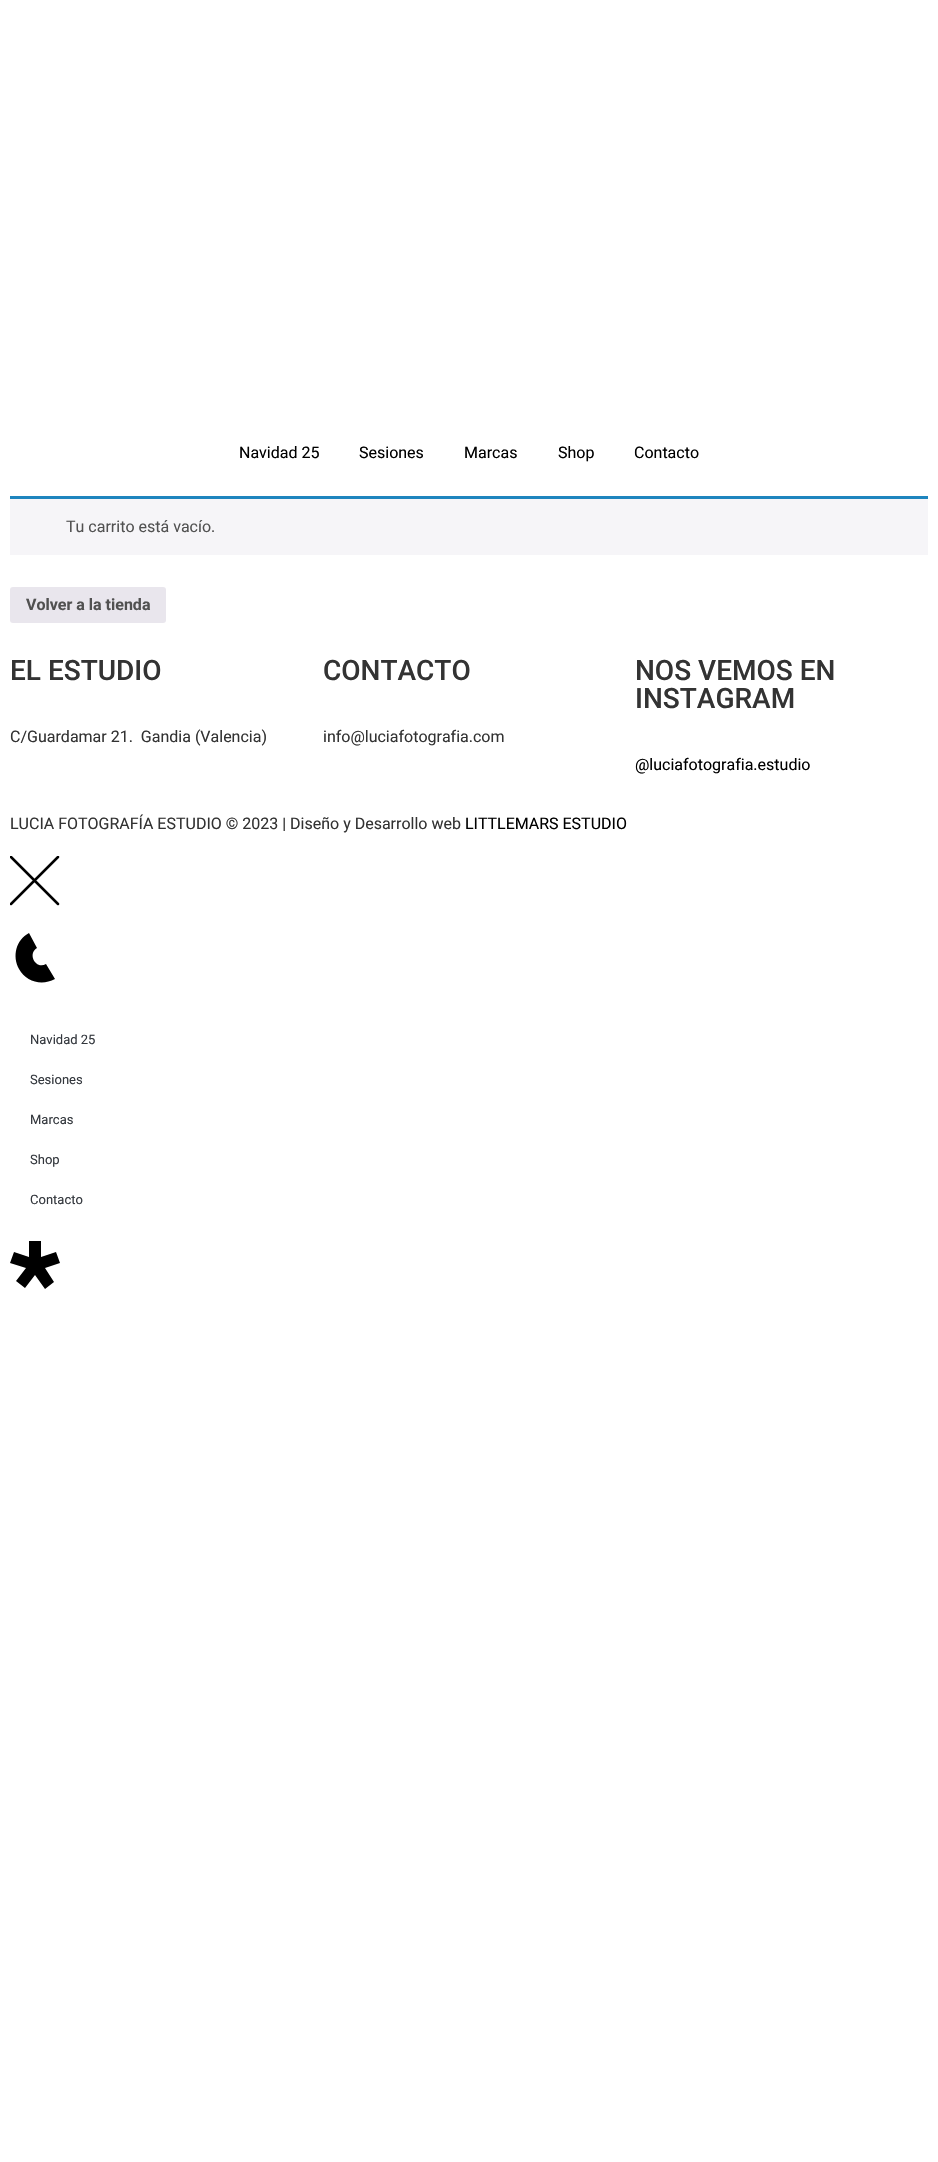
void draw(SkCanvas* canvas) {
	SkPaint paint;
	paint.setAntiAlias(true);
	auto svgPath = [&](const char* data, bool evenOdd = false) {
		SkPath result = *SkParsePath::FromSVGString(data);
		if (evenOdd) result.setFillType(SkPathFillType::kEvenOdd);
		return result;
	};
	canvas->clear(0xffffffff);
	SkFont f1(fontMgr->matchFamilyStyle("Roboto", SkFontStyle::Normal()), 16);
	f1.setSubpixel(true);
	paint.setColor(0xff000000);
	canvas->drawString("Navidad 25", 239, 458, f1, paint);
	canvas->drawString("Sesiones", 359, 458, f1, paint);
	canvas->drawString("Marcas", 464, 458, f1, paint);
	canvas->drawString("Shop", 558, 458, f1, paint);
	canvas->drawString("Contacto", 634, 458, f1, paint);
	paint.setColor(0xfff6f5f8);
	canvas->drawRect(SkRect::MakeXYWH(10, 499, 918, 56), paint);
	paint.setColor(0xff1e85be);
	canvas->drawRect(SkRect::MakeXYWH(10, 496, 918, 3), paint);
	paint.setColor(0xff515151);
	canvas->drawString("Tu carrito está vacío.", 66, 532, f1, paint);
	paint.setColor(0xffe9e6ed);
	canvas->drawRoundRect(SkRect::MakeXYWH(10, 587, 156, 36), 3, 3, paint);
	SkFont f2(fontMgr->matchFamilyStyle("Roboto", SkFontStyle::Bold()), 16);
	f2.setSubpixel(true);
	paint.setColor(0xff515151);
	canvas->drawString("Volver a la tienda", 26, 610, f2, paint);
	SkFont f3(fontMgr->matchFamilyStyle("Roboto", SkFontStyle(500, SkFontStyle::kNormal_Width, SkFontStyle::kUpright_Slant)), 28);
	f3.setSubpixel(true);
	paint.setColor(0xff333333);
	canvas->drawString("EL ESTUDIO", 10, 680, f3, paint);
	canvas->drawString("C/Guardamar 21.  Gandia (Valencia)", 10, 742, f1, paint);
	canvas->drawString("CONTACTO", 323, 680, f3, paint);
	canvas->drawString("info@luciafotografia.com", 323, 742, f1, paint);
	canvas->drawString("NOS VEMOS EN", 635, 680, f3, paint);
	canvas->drawString("INSTAGRAM", 635, 708, f3, paint);
	paint.setColor(0xff000000);
	canvas->drawString("@luciafotografia.estudio", 635, 770, f1, paint);
	paint.setColor(0xff333333);
	canvas->drawString("LUCIA FOTOGRAFÍA ESTUDIO © 2023 | Diseño y Desarrollo web", 10, 829, f1, paint);
	paint.setColor(0xff000000);
	canvas->drawString("LITTLEMARS ESTUDIO", 465, 829, f1, paint);
	canvas->save();
	canvas->clipRect(SkRect::MakeXYWH(10, 856, 50, 50));
	paint.setStroke(true);
	paint.setStrokeWidth(2.5);
	paint.setStrokeCap(SkPaint::kRound_Cap);
	paint.setStrokeJoin(SkPaint::kRound_Join);
	canvas->drawPath(svgPath("M11 857L58 904M58 857L11 904"), paint);
	canvas->restore();
	paint.setStroke(false);
	canvas->drawPath(svgPath("M46 964C36 970 27 954 37 948L29 933C16 940 12 956 19 969C26 982 42 986 55 979Z", true), paint);
	SkFont f4(fontMgr->matchFamilyStyle("Roboto", SkFontStyle::Normal()), 13);
	f4.setSubpixel(true);
	paint.setColor(0xff33373d);
	canvas->drawString("Navidad 25", 30, 1044, f4, paint);
	canvas->drawString("Sesiones", 30, 1084, f4, paint);
	canvas->drawString("Marcas", 30, 1124, f4, paint);
	canvas->drawString("Shop", 30, 1164, f4, paint);
	canvas->drawString("Contacto", 30, 1204, f4, paint);
	paint.setColor(0xff000000);
	canvas->drawPath(svgPath("M41 1257L56 1252L60 1263L45 1268L54 1282L45 1289L35 1275L25 1288L16 1281L26 1268L10 1263L14 1252L29 1257V1241H41Z"), paint);
}
